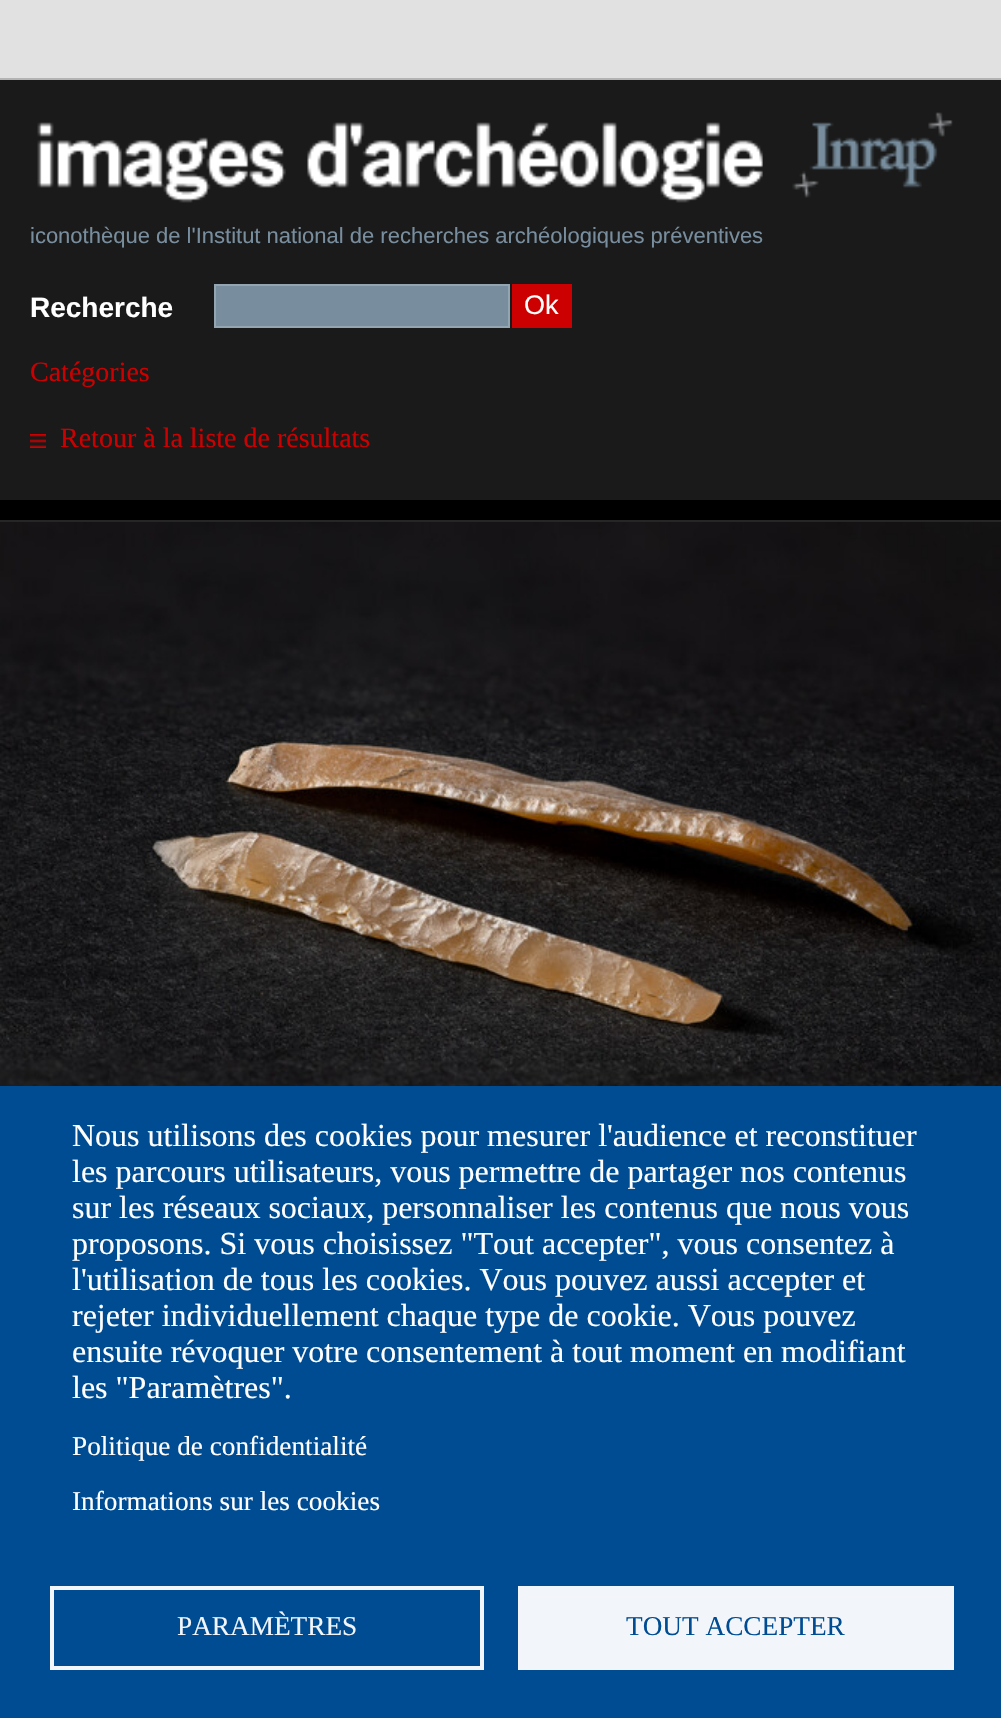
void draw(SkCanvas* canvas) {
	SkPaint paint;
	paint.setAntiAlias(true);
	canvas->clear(0xff000000);
	paint.setColor(0xffe1e1e1);
	canvas->drawRect(SkRect::MakeXYWH(0, 0, 1001, 78), paint);
	paint.setColor(0xffb3b3b3);
	canvas->drawRect(SkRect::MakeXYWH(0, 78, 1001, 2), paint);
	paint.setColor(0xff1a1a1a);
	canvas->drawRect(SkRect::MakeXYWH(0, 80, 1001, 420), paint);
	canvas->drawImageRect(SkImages::DeferredFromEncodedData(SkData::MakeFromFileName("img1.png")), SkRect::MakeXYWH(37, 112, 916, 91), SkSamplingOptions());
	SkFont f1(fontMgr->matchFamilyStyle("Liberation Sans", SkFontStyle::Normal()), 22);
	f1.setSubpixel(true);
	paint.setColor(0xff788e9e);
	canvas->drawString("iconothèque de l'Institut national de recherches archéologiques préventives", 30, 243, f1, paint);
	SkFont f2(fontMgr->matchFamilyStyle("Liberation Sans", SkFontStyle::Bold()), 28);
	f2.setSubpixel(true);
	paint.setColor(0xffffffff);
	canvas->drawString("Recherche", 30, 317, f2, paint);
	paint.setColor(0xff788e9e);
	canvas->drawRect(SkRect::MakeXYWH(215, 285, 294, 42), paint);
	paint.setStroke(true);
	paint.setStrokeWidth(2);
	paint.setColor(0xff93a5b1);
	canvas->drawRect(SkRect::MakeXYWH(215, 285, 294, 42), paint);
	paint.setStroke(false);
	paint.setColor(0xffcc0000);
	canvas->drawRect(SkRect::MakeXYWH(512, 284, 60, 44), paint);
	SkFont f3(fontMgr->matchFamilyStyle("Liberation Sans", SkFontStyle::Normal()), 27);
	f3.setSubpixel(true);
	paint.setColor(0xffffffff);
	canvas->drawString("Ok", 524, 314, f3, paint);
	SkFont f4(fontMgr->matchFamilyStyle("Liberation Serif", SkFontStyle::Normal()), 28);
	f4.setSubpixel(true);
	paint.setColor(0xffcc0000);
	canvas->drawString("Catégories", 30, 381, f4, paint);
	canvas->drawImageRect(SkImages::DeferredFromEncodedData(SkData::MakeFromFileName("img2.png")), SkRect::MakeXYWH(30, 434, 16, 14), SkSamplingOptions());
	canvas->drawString("Retour à la liste de résultats", 60, 447, f4, paint);
	paint.setColor(0xff262626);
	canvas->drawRect(SkRect::MakeXYWH(0, 520, 1001, 2), paint);
	canvas->drawImageRect(SkImages::DeferredFromEncodedData(SkData::MakeFromFileName("img3.png")), SkRect::MakeXYWH(0, 522, 1001, 564), SkSamplingOptions());
	paint.setColor(0xff004c93);
	canvas->drawRect(SkRect::MakeXYWH(0, 1086, 1001, 632), paint);
	SkFont f5(fontMgr->matchFamilyStyle("Liberation Serif", SkFontStyle::Normal()), 32);
	f5.setSubpixel(true);
	paint.setColor(0xffffffff);
	canvas->drawString("Nous utilisons des cookies pour mesurer l'audience et reconstituer", 72, 1146, f5, paint);
	canvas->drawString("les parcours utilisateurs, vous permettre de partager nos contenus", 72, 1182, f5, paint);
	canvas->drawString("sur les réseaux sociaux, personnaliser les contenus que nous vous", 72, 1218, f5, paint);
	canvas->drawString("proposons. Si vous choisissez \"Tout accepter\", vous consentez à", 72, 1254, f5, paint);
	canvas->drawString("l'utilisation de tous les cookies. Vous pouvez aussi accepter et", 72, 1290, f5, paint);
	canvas->drawString("rejeter individuellement chaque type de cookie. Vous pouvez", 72, 1326, f5, paint);
	canvas->drawString("ensuite révoquer votre consentement à tout moment en modifiant", 72, 1362, f5, paint);
	canvas->drawString("les \"Paramètres\".", 72, 1398, f5, paint);
	SkFont f6(fontMgr->matchFamilyStyle("Liberation Serif", SkFontStyle::Normal()), 27.25);
	f6.setSubpixel(true);
	canvas->drawString("Politique de confidentialité", 72, 1455, f6, paint);
	canvas->drawString("Informations sur les cookies", 72, 1510, f6, paint);
	paint.setStroke(true);
	paint.setStrokeWidth(4);
	paint.setColor(0xfff2f6fa);
	canvas->drawRect(SkRect::MakeXYWH(52, 1588, 430, 80), paint);
	paint.setStroke(false);
	canvas->drawString("PARAMÈTRES", 177, 1635, f6, paint);
	canvas->drawRect(SkRect::MakeXYWH(518, 1586, 436, 84), paint);
	paint.setColor(0xff004c93);
	canvas->drawString("TOUT ACCEPTER", 626, 1635, f6, paint);
}
